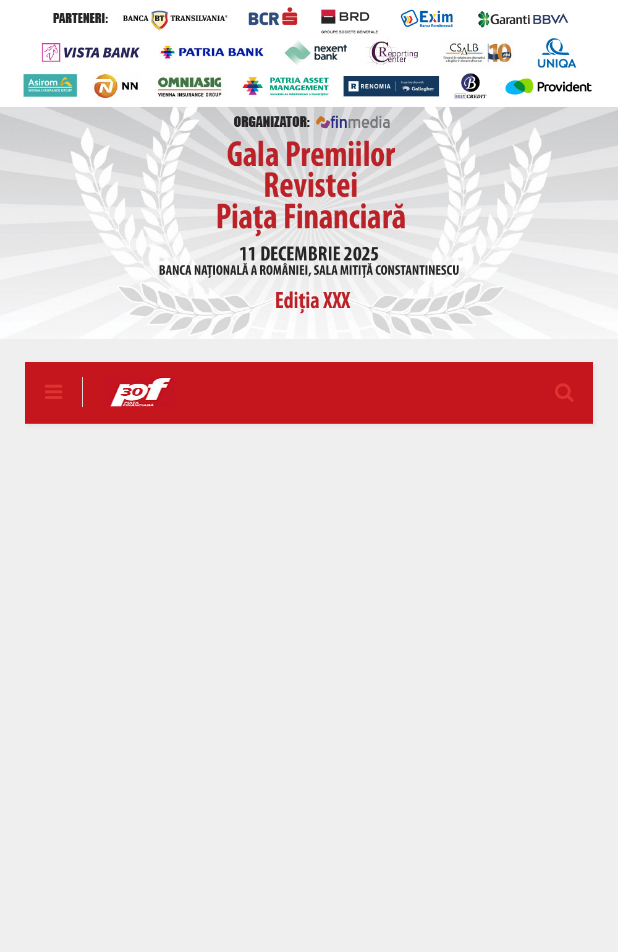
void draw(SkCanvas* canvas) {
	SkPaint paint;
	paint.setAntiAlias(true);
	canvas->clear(0xffefefef);
	canvas->drawImageRect(SkImages::DeferredFromEncodedData(SkData::MakeFromFileName("img1.png")), SkRect::MakeXYWH(0, 0, 618, 339), SkSamplingOptions());
	paint.setColor(0x0d000000);
	paint.setMaskFilter(SkMaskFilter::MakeBlur(kNormal_SkBlurStyle, 1.5));
	canvas->drawRect(SkRect::MakeXYWH(27, 364, 568, 62), paint);
	paint.setMaskFilter(nullptr);
	paint.setColor(0xffc5161d);
	canvas->drawRect(SkRect::MakeXYWH(25, 362, 568, 61), paint);
	canvas->drawImageRect(SkImages::DeferredFromEncodedData(SkData::MakeFromFileName("img2.png")), SkRect::MakeXYWH(45, 384, 18, 15), SkSamplingOptions());
	paint.setColor(0xffdddddd);
	canvas->drawRect(SkRect::MakeXYWH(82, 377, 1, 30), paint);
	canvas->drawImageRect(SkImages::DeferredFromEncodedData(SkData::MakeFromFileName("img3.png")), SkRect::MakeXYWH(103, 377, 72, 30), SkSamplingOptions());
	canvas->drawImageRect(SkImages::DeferredFromEncodedData(SkData::MakeFromFileName("img4.png")), SkRect::MakeXYWH(555, 383, 19, 19), SkSamplingOptions());
	paint.setColor(0xffdd3333);
	canvas->drawRect(SkRect::MakeXYWH(25, 423, 568, 1), paint);
}
